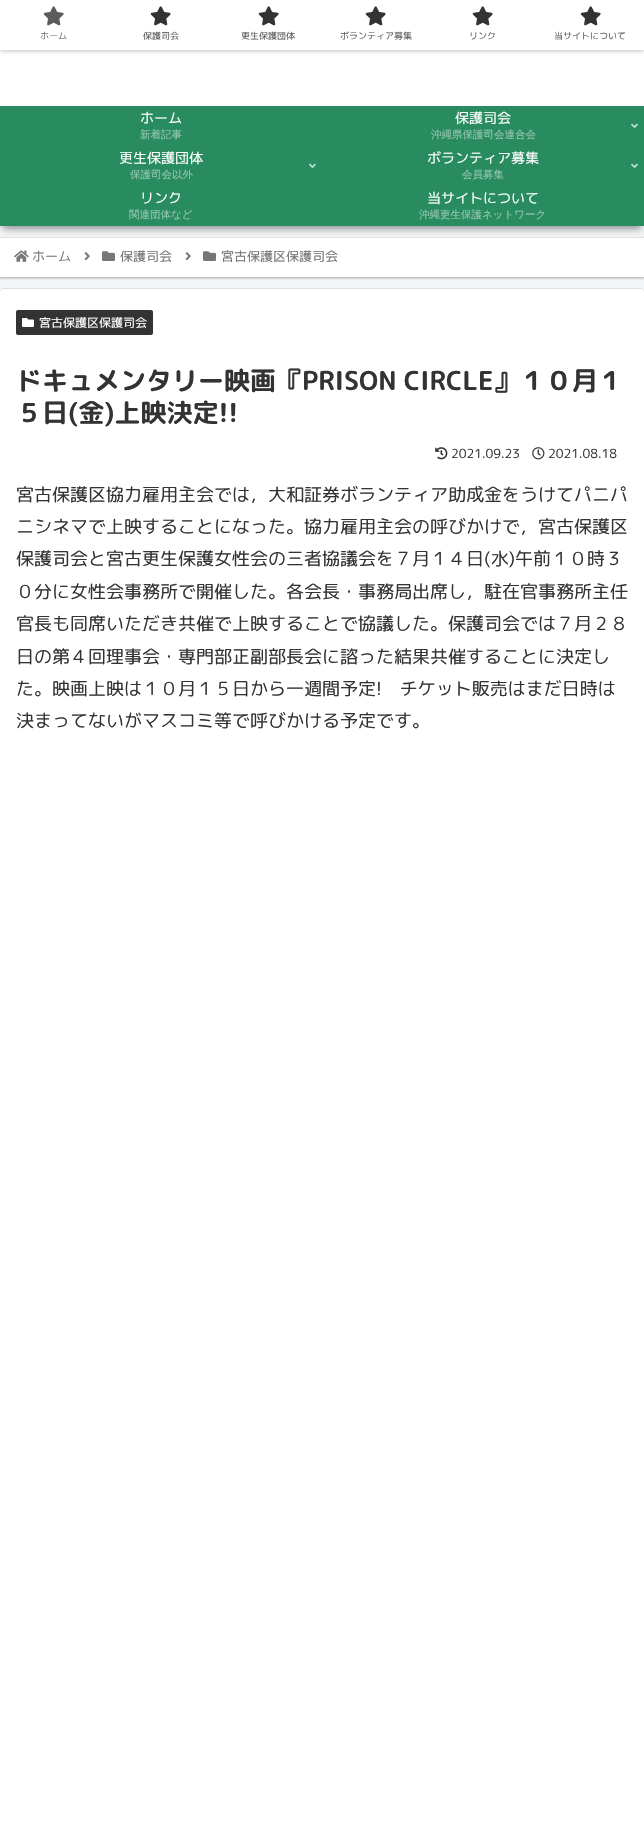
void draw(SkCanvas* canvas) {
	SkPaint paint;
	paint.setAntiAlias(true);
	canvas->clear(0xfff4f5f7);
	paint.setColor(0x2e000000);
	paint.setMaskFilter(SkMaskFilter::MakeBlur(kNormal_SkBlurStyle, 5));
	canvas->drawRect(SkRect::MakeXYWH(3, 55, 638, 174), paint);
	paint.setMaskFilter(nullptr);
	paint.setColor(0x3d000000);
	paint.setMaskFilter(SkMaskFilter::MakeBlur(kNormal_SkBlurStyle, 2.5));
	canvas->drawRect(SkRect::MakeXYWH(3, 55, 638, 174), paint);
	paint.setMaskFilter(nullptr);
	paint.setColor(0xffffffff);
	canvas->drawRect(SkRect::MakeXYWH(0, 50, 644, 56), paint);
	paint.setColor(0xffa9a9a9);
	paint.setMaskFilter(SkMaskFilter::MakeBlur(kNormal_SkBlurStyle, 2.5));
	canvas->drawRect(SkRect::MakeXYWH(0, 0, 644, 50), paint);
	paint.setMaskFilter(nullptr);
	paint.setColor(0xffffffff);
	canvas->drawRect(SkRect::MakeXYWH(0, 0, 644, 50), paint);
	canvas->drawImageRect(SkImages::DeferredFromEncodedData(SkData::MakeFromFileName("img1.png")), SkRect::MakeXYWH(43, 6, 21, 20), SkSamplingOptions());
	SkFont f1(fontMgr->matchFamilyStyle("Rounded Mplus 1c", SkFontStyle::Normal()), 9);
	f1.setSubpixel(true);
	paint.setColor(0xff777777);
	canvas->drawString("ホーム", 40, 39, f1, paint);
	canvas->drawImageRect(SkImages::DeferredFromEncodedData(SkData::MakeFromFileName("img2.png")), SkRect::MakeXYWH(150, 6, 21, 20), SkSamplingOptions());
	paint.setColor(0xff5c5c5c);
	canvas->drawString("保護司会", 143, 39, f1, paint);
	canvas->drawImageRect(SkImages::DeferredFromEncodedData(SkData::MakeFromFileName("img2.png")), SkRect::MakeXYWH(258, 6, 21, 20), SkSamplingOptions());
	canvas->drawString("更生保護団体", 241, 39, f1, paint);
	canvas->drawImageRect(SkImages::DeferredFromEncodedData(SkData::MakeFromFileName("img2.png")), SkRect::MakeXYWH(365, 6, 21, 20), SkSamplingOptions());
	canvas->drawString("ボランティア募集", 340, 39, f1, paint);
	canvas->drawImageRect(SkImages::DeferredFromEncodedData(SkData::MakeFromFileName("img2.png")), SkRect::MakeXYWH(472, 6, 21, 20), SkSamplingOptions());
	canvas->drawString("リンク", 469, 39, f1, paint);
	canvas->drawImageRect(SkImages::DeferredFromEncodedData(SkData::MakeFromFileName("img2.png")), SkRect::MakeXYWH(580, 6, 21, 20), SkSamplingOptions());
	canvas->drawString("当サイトについて", 554, 39, f1, paint);
	paint.setColor(0xff298c60);
	canvas->drawRect(SkRect::MakeXYWH(0, 106, 644, 120), paint);
	SkFont f2(fontMgr->matchFamilyStyle("Rounded Mplus 1c", SkFontStyle::Normal()), 14);
	f2.setSubpixel(true);
	paint.setColor(0xffffffff);
	canvas->drawString("ホーム", 140, 123, f2, paint);
	SkFont f3(fontMgr->matchFamilyStyle("WenQuanYi Zen Hei", SkFontStyle(500, SkFontStyle::kNormal_Width, SkFontStyle::kUpright_Slant)), 10.5);
	f3.setSubpixel(true);
	paint.setColor(0xff94c6b0);
	canvas->drawString("新着記事", 140, 138, f3, paint);
	paint.setColor(0xffffffff);
	canvas->drawString("保護司会", 455, 123, f2, paint);
	paint.setColor(0xff94c6b0);
	canvas->drawString("沖縄県保護司会連合会", 431, 138, f3, paint);
	canvas->drawImageRect(SkImages::DeferredFromEncodedData(SkData::MakeFromFileName("img3.png")), SkRect::MakeXYWH(631, 123, 7, 5), SkSamplingOptions());
	paint.setColor(0xffffffff);
	canvas->drawString("更生保護団体", 119, 163, f2, paint);
	paint.setColor(0xff94c6b0);
	canvas->drawString("保護司会以外", 130, 178, f3, paint);
	canvas->drawImageRect(SkImages::DeferredFromEncodedData(SkData::MakeFromFileName("img3.png")), SkRect::MakeXYWH(309, 163, 7, 5), SkSamplingOptions());
	paint.setColor(0xffffffff);
	canvas->drawString("ボランティア募集", 427, 163, f2, paint);
	paint.setColor(0xff94c6b0);
	canvas->drawString("会員募集", 462, 178, f3, paint);
	canvas->drawImageRect(SkImages::DeferredFromEncodedData(SkData::MakeFromFileName("img3.png")), SkRect::MakeXYWH(631, 163, 7, 5), SkSamplingOptions());
	paint.setColor(0xffffffff);
	canvas->drawString("リンク", 140, 203, f2, paint);
	paint.setColor(0xff94c6b0);
	canvas->drawString("関連団体など", 129, 218, f3, paint);
	paint.setColor(0xffffffff);
	canvas->drawString("当サイトについて", 427, 203, f2, paint);
	paint.setColor(0xff94c6b0);
	canvas->drawString("沖縄更生保護ネットワーク", 419, 218, f3, paint);
	paint.setStroke(true);
	paint.setStrokeWidth(1);
	paint.setColor(0xffe0e1e2);
	canvas->drawRect(SkRect::MakeXYWH(-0.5, 237.5, 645, 40), paint);
	paint.setStroke(false);
	paint.setColor(0x29000000);
	paint.setMaskFilter(SkMaskFilter::MakeBlur(kNormal_SkBlurStyle, 1));
	canvas->drawRect(SkRect::MakeXYWH(0, 240, 644, 39), paint);
	paint.setMaskFilter(nullptr);
	paint.setColor(0xffffffff);
	canvas->drawRect(SkRect::MakeXYWH(0, 238, 644, 39), paint);
	canvas->drawImageRect(SkImages::DeferredFromEncodedData(SkData::MakeFromFileName("img4.png")), SkRect::MakeXYWH(14, 250, 15, 12), SkSamplingOptions());
	SkFont f4(fontMgr->matchFamilyStyle("Rounded Mplus 1c", SkFontStyle::Normal()), 13);
	f4.setSubpixel(true);
	paint.setColor(0xff777777);
	canvas->drawString("ホーム", 32, 261, f4, paint);
	canvas->drawImageRect(SkImages::DeferredFromEncodedData(SkData::MakeFromFileName("img5.png")), SkRect::MakeXYWH(84, 252, 6, 9), SkSamplingOptions());
	canvas->drawImageRect(SkImages::DeferredFromEncodedData(SkData::MakeFromFileName("img6.png")), SkRect::MakeXYWH(102, 251, 13, 10), SkSamplingOptions());
	canvas->drawString("保護司会", 120, 261, f4, paint);
	canvas->drawImageRect(SkImages::DeferredFromEncodedData(SkData::MakeFromFileName("img5.png")), SkRect::MakeXYWH(185, 252, 6, 9), SkSamplingOptions());
	canvas->drawImageRect(SkImages::DeferredFromEncodedData(SkData::MakeFromFileName("img6.png")), SkRect::MakeXYWH(203, 251, 13, 10), SkSamplingOptions());
	canvas->drawString("宮古保護区保護司会", 221, 261, f4, paint);
	paint.setStroke(true);
	paint.setColor(0xffe0e1e3);
	canvas->drawRoundRect(SkRect::MakeXYWH(-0.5, 288.5, 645, 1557), 4.5, 4.5, paint);
	paint.setStroke(false);
	paint.setColor(0xffffffff);
	canvas->drawRoundRect(SkRect::MakeXYWH(0, 289, 644, 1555), 4, 4, paint);
	paint.setColor(0xff333333);
	canvas->drawRoundRect(SkRect::MakeXYWH(16, 310, 137, 25), 2, 2, paint);
	canvas->drawImageRect(SkImages::DeferredFromEncodedData(SkData::MakeFromFileName("img7.png")), SkRect::MakeXYWH(22, 318, 12, 9), SkSamplingOptions());
	SkFont f5(fontMgr->matchFamilyStyle("Rounded Mplus 1c", SkFontStyle::Normal()), 12);
	f5.setSubpixel(true);
	paint.setColor(0xffffffff);
	canvas->drawString("宮古保護区保護司会", 39, 327, f5, paint);
	SkFont f6(fontMgr->matchFamilyStyle("Rounded Mplus 1c Bold", SkFontStyle::Bold()), 26);
	f6.setSubpixel(true);
	paint.setColor(0xff333333);
	canvas->drawString("ドキュメンタリー映画『PRISON CIRCLE』１０月１", 16, 390, f6, paint);
	canvas->drawString("５日(金)上映決定!!", 16, 422, f6, paint);
	canvas->drawImageRect(SkImages::DeferredFromEncodedData(SkData::MakeFromFileName("img8.png")), SkRect::MakeXYWH(435, 447, 13, 13), SkSamplingOptions());
	SkFont f7(fontMgr->matchFamilyStyle("Rounded Mplus 1c", SkFontStyle::Normal()), 12.5);
	f7.setSubpixel(true);
	canvas->drawString("2021.09.23", 451, 458, f7, paint);
	canvas->drawImageRect(SkImages::DeferredFromEncodedData(SkData::MakeFromFileName("img9.png")), SkRect::MakeXYWH(532, 447, 13, 13), SkSamplingOptions());
	canvas->drawString("2021.08.18", 548, 458, f7, paint);
	SkFont f8(fontMgr->matchFamilyStyle("Rounded Mplus 1c", SkFontStyle::Normal()), 18);
	f8.setSubpixel(true);
	canvas->drawString("宮古保護区協力雇用主会では，大和証券ボランティア助成金をうけてパニパ", 16, 501, f8, paint);
	canvas->drawString("ニシネマで上映することになった。協力雇用主会の呼びかけで，宮古保護区", 16, 533, f8, paint);
	canvas->drawString("保護司会と宮古更生保護女性会の三者協議会を７月１４日(水)午前１０時３", 16, 565, f8, paint);
	canvas->drawString("０分に女性会事務所で開催した。各会長・事務局出席し，駐在官事務所主任", 16, 598, f8, paint);
	canvas->drawString("官長も同席いただき共催で上映することで協議した。保護司会では７月２８", 16, 630, f8, paint);
	canvas->drawString("日の第４回理事会・専門部正副部長会に諮った結果共催することに決定し", 16, 663, f8, paint);
	canvas->drawString("た。映画上映は１０月１５日から一週間予定!　チケット販売はまだ日時は", 16, 695, f8, paint);
	canvas->drawString("決まってないがマスコミ等で呼びかける予定です。", 16, 727, f8, paint);
}
